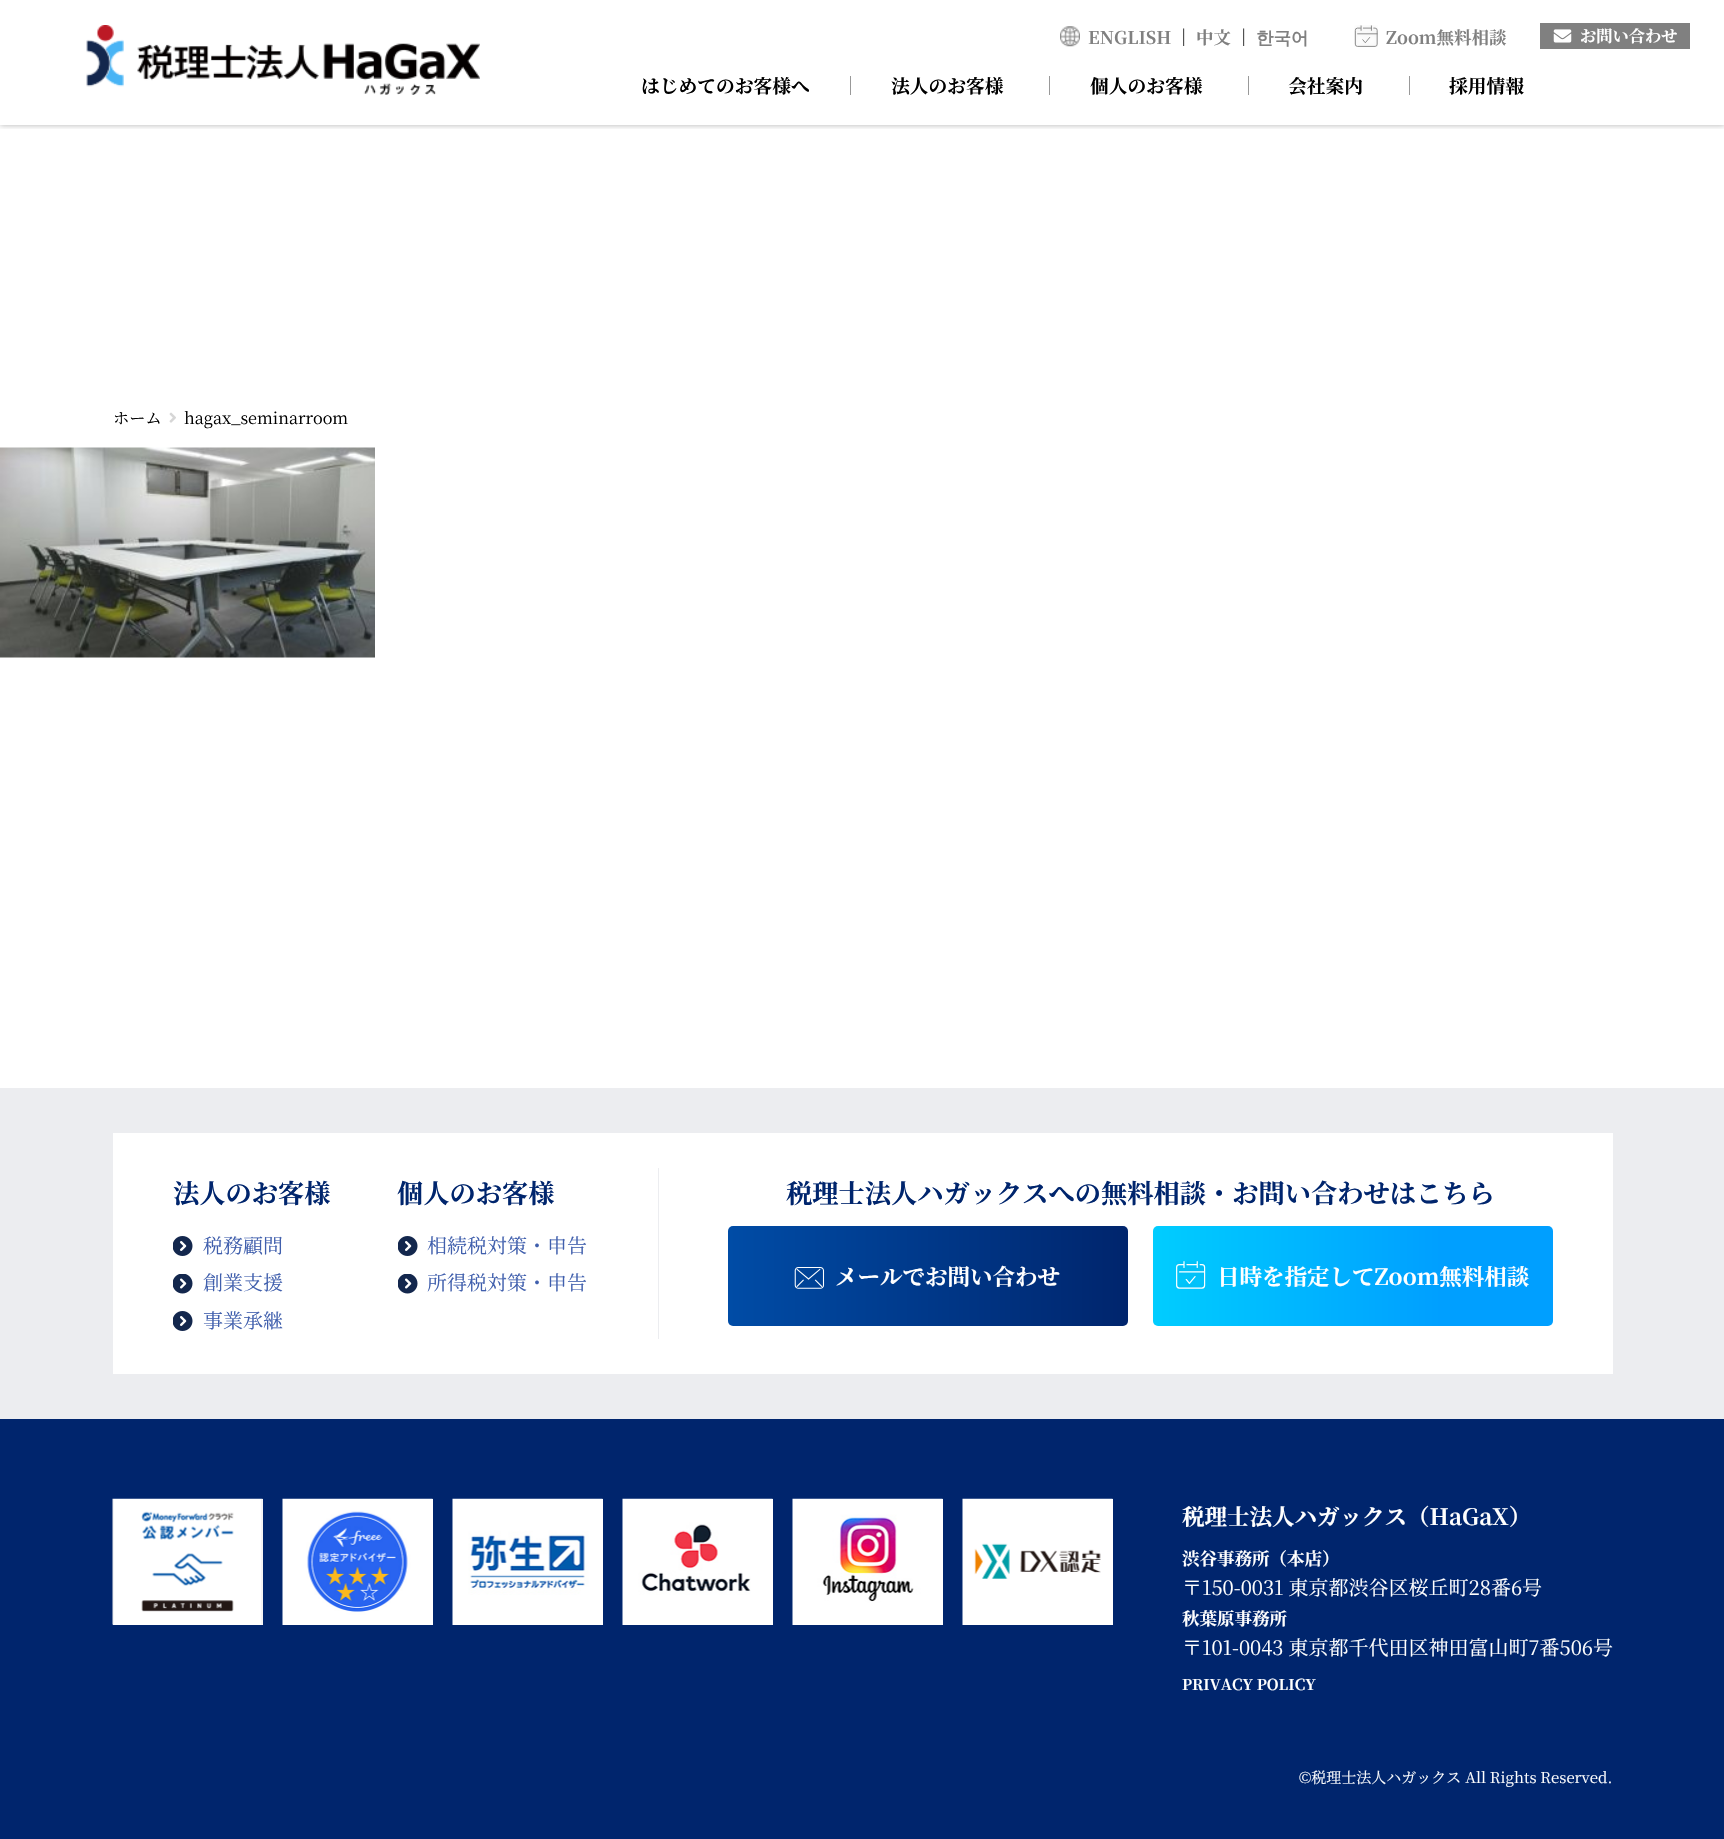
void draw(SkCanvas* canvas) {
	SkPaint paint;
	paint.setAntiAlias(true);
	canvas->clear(0xffffffff);
	canvas->save();
	canvas->clipRect(SkRect::MakeXYWH(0, 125, 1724, 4));
	paint.setColor(0x4d000000);
	paint.setMaskFilter(SkMaskFilter::MakeBlur(kNormal_SkBlurStyle, 3));
	canvas->drawRect(SkRect::MakeXYWH(0, 0, 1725, 125), paint);
	paint.setMaskFilter(nullptr);
	canvas->restore();
	canvas->drawImageRect(SkImages::DeferredFromEncodedData(SkData::MakeFromFileName("img1.png")), SkRect::MakeXYWH(86, 25, 394, 70), SkSamplingOptions());
	canvas->drawImageRect(SkImages::DeferredFromEncodedData(SkData::MakeFromFileName("img2.png")), SkRect::MakeXYWH(1060, 26, 20, 21), SkSamplingOptions());
	SkFont f1(fontMgr->matchFamilyStyle("Noto Serif JP", SkFontStyle::Bold()), 17.5);
	f1.setSubpixel(true);
	paint.setColor(0xff808080);
	canvas->drawString("ENGLISH", 1088, 44, f1, paint);
	paint.setColor(0xff000000);
	canvas->drawString("｜", 1175, 44, f1, paint);
	paint.setColor(0xff808080);
	canvas->drawString("中文", 1196, 44, f1, paint);
	paint.setColor(0xff000000);
	canvas->drawString("｜", 1235, 44, f1, paint);
	SkFont f2(fontMgr->matchFamilyStyle("WenQuanYi Zen Hei", SkFontStyle::Bold()), 17.5);
	f2.setSubpixel(true);
	paint.setColor(0xff808080);
	canvas->drawString("한국어", 1256, 44, f2, paint);
	canvas->drawImageRect(SkImages::DeferredFromEncodedData(SkData::MakeFromFileName("img3.png")), SkRect::MakeXYWH(1354, 25, 24, 22), SkSamplingOptions());
	canvas->drawString("Zoom無料相談", 1386, 44, f1, paint);
	canvas->drawRect(SkRect::MakeXYWH(1540, 23, 150, 26), paint);
	canvas->drawImageRect(SkImages::DeferredFromEncodedData(SkData::MakeFromFileName("img4.png")), SkRect::MakeXYWH(1553, 29, 19, 14), SkSamplingOptions());
	SkFont f3(fontMgr->matchFamilyStyle("Noto Serif JP", SkFontStyle::Bold()), 16.25);
	f3.setSubpixel(true);
	paint.setColor(0xffffffff);
	canvas->drawString("お問い合わせ", 1580, 42, f3, paint);
	SkFont f4(fontMgr->matchFamilyStyle("Noto Serif JP", SkFontStyle::Bold()), 18.75);
	f4.setSubpixel(true);
	paint.setColor(0xff000000);
	canvas->drawString("はじめてのお客様へ", 641, 93, f4, paint);
	paint.setColor(0xff999999);
	canvas->drawRect(SkRect::MakeXYWH(850, 76, 1, 19), paint);
	paint.setColor(0xff000000);
	canvas->drawString("法人のお客様", 891, 93, f4, paint);
	paint.setColor(0xff999999);
	canvas->drawRect(SkRect::MakeXYWH(1049, 76, 1, 19), paint);
	paint.setColor(0xff000000);
	canvas->drawString("個人のお客様", 1090, 93, f4, paint);
	paint.setColor(0xff999999);
	canvas->drawRect(SkRect::MakeXYWH(1248, 76, 1, 19), paint);
	paint.setColor(0xff000000);
	canvas->drawString("会社案内", 1288, 93, f4, paint);
	paint.setColor(0xff999999);
	canvas->drawRect(SkRect::MakeXYWH(1409, 76, 1, 19), paint);
	paint.setColor(0xff000000);
	canvas->drawString("採用情報", 1449, 93, f4, paint);
	SkFont f5(fontMgr->matchFamilyStyle("Noto Serif JP", SkFontStyle::Normal()), 16.25);
	f5.setSubpixel(true);
	canvas->drawString("ホーム", 113, 424, f5, paint);
	canvas->drawImageRect(SkImages::DeferredFromEncodedData(SkData::MakeFromFileName("img5.png")), SkRect::MakeXYWH(169, 412, 7, 11), SkSamplingOptions());
	canvas->drawString("hagax_seminarroom", 184, 424, f5, paint);
	canvas->drawImageRect(SkImages::DeferredFromEncodedData(SkData::MakeFromFileName("img6.png")), SkRect::MakeXYWH(0, 447, 375, 211), SkSamplingOptions());
	paint.setColor(0xffecedf0);
	canvas->drawRect(SkRect::MakeXYWH(0, 1088, 1724, 331), paint);
	paint.setColor(0xffffffff);
	canvas->drawRect(SkRect::MakeXYWH(113, 1133, 1500, 241), paint);
	SkFont f6(fontMgr->matchFamilyStyle("Noto Serif JP", SkFontStyle::Bold()), 26.25);
	f6.setSubpixel(true);
	paint.setColor(0xff00256d);
	canvas->drawString("法人のお客様", 173, 1203, f6, paint);
	canvas->drawImageRect(SkImages::DeferredFromEncodedData(SkData::MakeFromFileName("img7.png")), SkRect::MakeXYWH(173, 1236, 20, 20), SkSamplingOptions());
	SkFont f7(fontMgr->matchFamilyStyle("Noto Serif JP", SkFontStyle::Normal()), 20);
	f7.setSubpixel(true);
	paint.setColor(0xff405fad);
	canvas->drawString("税務顧問", 203, 1253, f7, paint);
	canvas->drawImageRect(SkImages::DeferredFromEncodedData(SkData::MakeFromFileName("img8.png")), SkRect::MakeXYWH(173, 1274, 20, 20), SkSamplingOptions());
	canvas->drawString("創業支援", 203, 1290, f7, paint);
	canvas->drawImageRect(SkImages::DeferredFromEncodedData(SkData::MakeFromFileName("img7.png")), SkRect::MakeXYWH(173, 1311, 20, 20), SkSamplingOptions());
	canvas->drawString("事業承継", 203, 1328, f7, paint);
	paint.setColor(0xff00256d);
	canvas->drawString("個人のお客様", 397, 1203, f6, paint);
	canvas->drawImageRect(SkImages::DeferredFromEncodedData(SkData::MakeFromFileName("img7.png")), SkRect::MakeXYWH(398, 1236, 20, 20), SkSamplingOptions());
	paint.setColor(0xff405fad);
	canvas->drawString("相続税対策・申告", 427, 1253, f7, paint);
	canvas->drawImageRect(SkImages::DeferredFromEncodedData(SkData::MakeFromFileName("img8.png")), SkRect::MakeXYWH(398, 1274, 20, 20), SkSamplingOptions());
	canvas->drawString("所得税対策・申告", 427, 1290, f7, paint);
	paint.setColor(0xffecedf0);
	canvas->drawRect(SkRect::MakeXYWH(658, 1168, 1, 171), paint);
	paint.setColor(0xff00256d);
	canvas->drawString("税理士法人ハガックスへの無料相談・お問い合わせはこちら", 786, 1203, f6, paint);
	{
		const SkColor colors[] = {0xff004ca6, 0xff00256d};
		const float stops[] = {0, 1};
		const SkPoint ends[] = {{728, 1276}, {1128, 1276}};
		paint.setShader(SkGradientShader::MakeLinear(ends, colors, stops, 2, SkTileMode::kClamp));
		paint.setAlpha(255);
	}
	canvas->drawRoundRect(SkRect::MakeXYWH(728, 1226, 400, 100), 5, 5, paint);
	canvas->drawImageRect(SkImages::DeferredFromEncodedData(SkData::MakeFromFileName("img9.png")), SkRect::MakeXYWH(794, 1267, 31, 22), SkSamplingOptions());
	SkFont f8(fontMgr->matchFamilyStyle("Noto Serif JP", SkFontStyle::Bold()), 22.5);
	f8.setSubpixel(true);
	paint.setShader(nullptr);
	paint.setColor(0xffffffff);
	canvas->drawString("メールでお問い合わせ", 835, 1285, f8, paint);
	{
		const SkColor colors[] = {0xff00cdff, 0xff009fff};
		const float stops[] = {0, 0.72};
		const SkPoint ends[] = {{1153, 1276}, {1553, 1276}};
		paint.setShader(SkGradientShader::MakeLinear(ends, colors, stops, 2, SkTileMode::kClamp));
		paint.setAlpha(255);
	}
	canvas->drawRoundRect(SkRect::MakeXYWH(1153, 1226, 400, 100), 5, 5, paint);
	canvas->drawImageRect(SkImages::DeferredFromEncodedData(SkData::MakeFromFileName("img10.png")), SkRect::MakeXYWH(1176, 1261, 30, 28), SkSamplingOptions());
	paint.setShader(nullptr);
	paint.setColor(0xffffffff);
	canvas->drawString("日時を指定してZoom無料相談", 1217, 1285, f8, paint);
	paint.setColor(0xff00256d);
	canvas->drawRect(SkRect::MakeXYWH(0, 1419, 1724, 420), paint);
	paint.setColor(0xffffffff);
	canvas->drawRect(SkRect::MakeXYWH(113, 1499, 150, 126), paint);
	canvas->drawImageRect(SkImages::DeferredFromEncodedData(SkData::MakeFromFileName("img11.png")), SkRect::MakeXYWH(112, 1498, 151, 127), SkSamplingOptions());
	canvas->drawRect(SkRect::MakeXYWH(432, 1499, 1, 126), paint);
	canvas->drawImageRect(SkImages::DeferredFromEncodedData(SkData::MakeFromFileName("img12.png")), SkRect::MakeXYWH(282, 1498, 151, 127), SkSamplingOptions());
	canvas->drawRect(SkRect::MakeXYWH(602, 1499, 1, 126), paint);
	canvas->drawImageRect(SkImages::DeferredFromEncodedData(SkData::MakeFromFileName("img13.png")), SkRect::MakeXYWH(452, 1498, 151, 127), SkSamplingOptions());
	canvas->drawRect(SkRect::MakeXYWH(772, 1499, 1, 126), paint);
	canvas->drawImageRect(SkImages::DeferredFromEncodedData(SkData::MakeFromFileName("img14.png")), SkRect::MakeXYWH(622, 1498, 151, 127), SkSamplingOptions());
	canvas->drawRect(SkRect::MakeXYWH(942, 1499, 1, 126), paint);
	canvas->drawImageRect(SkImages::DeferredFromEncodedData(SkData::MakeFromFileName("img15.png")), SkRect::MakeXYWH(792, 1498, 151, 127), SkSamplingOptions());
	canvas->drawRect(SkRect::MakeXYWH(1112, 1499, 1, 126), paint);
	canvas->drawImageRect(SkImages::DeferredFromEncodedData(SkData::MakeFromFileName("img16.png")), SkRect::MakeXYWH(962, 1498, 151, 127), SkSamplingOptions());
	canvas->drawString("税理士法人ハガックス（HaGaX）", 1182, 1525, f8, paint);
	canvas->drawString("渋谷事務所（本店）", 1182, 1565, f1, paint);
	canvas->drawString("〒150-0031 東京都渋谷区桜丘町28番6号", 1182, 1595, f7, paint);
	canvas->drawString("秋葉原事務所", 1182, 1625, f1, paint);
	canvas->drawString("〒101-0043 東京都千代田区神田富山町7番506号", 1182, 1655, f7, paint);
	SkFont f9(fontMgr->matchFamilyStyle("Noto Serif JP", SkFontStyle::Bold()), 15);
	f9.setSubpixel(true);
	canvas->drawString("PRIVACY POLICY", 1182, 1690, f9, paint);
	SkFont f10(fontMgr->matchFamilyStyle("Noto Serif JP", SkFontStyle::Normal()), 15);
	f10.setSubpixel(true);
	canvas->drawString("©税理士法人ハガックス All Rights Reserved.", 1299, 1783, f10, paint);
}
